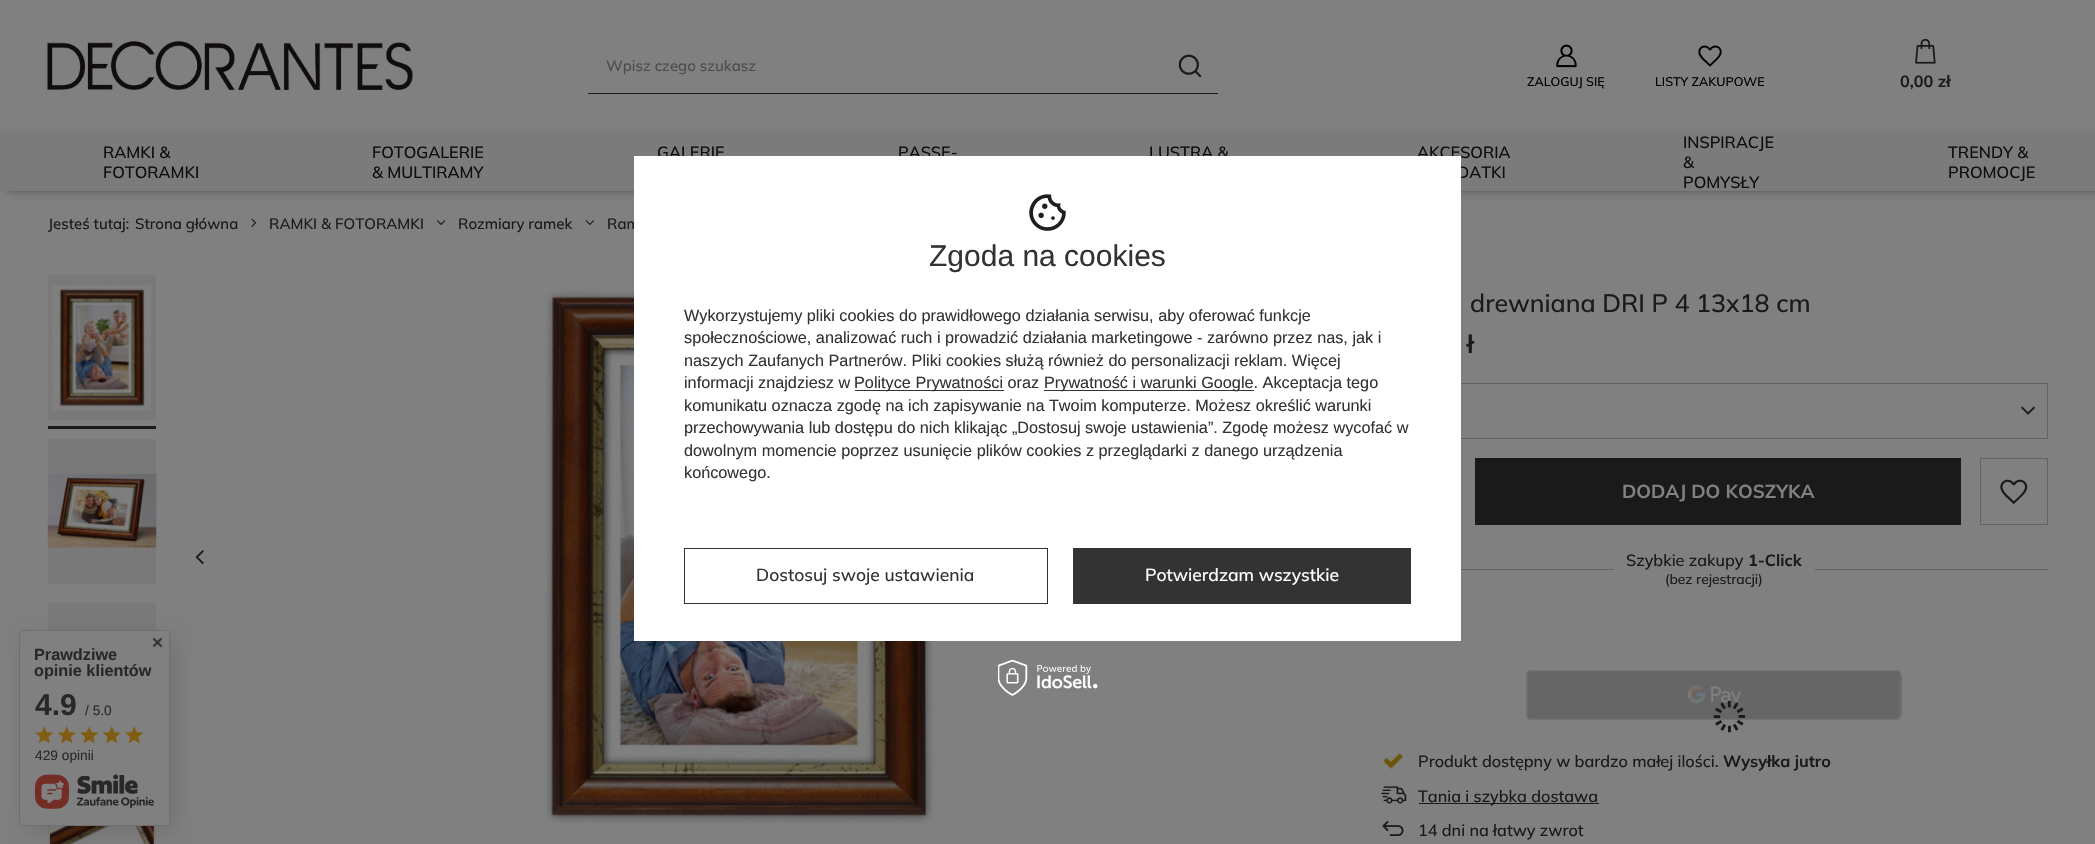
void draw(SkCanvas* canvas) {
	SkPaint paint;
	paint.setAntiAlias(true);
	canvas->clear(0xff808080);
	canvas->drawImageRect(SkImages::DeferredFromEncodedData(SkData::MakeFromFileName("img1.png")), SkRect::MakeXYWH(47, 41, 366, 49), SkSamplingOptions());
	paint.setColor(0xff1a1a1a);
	canvas->drawRect(SkRect::MakeXYWH(588, 93, 630, 1), paint);
	SkFont f1(fontMgr->matchFamilyStyle("Mulish", SkFontStyle(500, SkFontStyle::kNormal_Width, SkFontStyle::kUpright_Slant)), 15);
	f1.setSubpixel(true);
	paint.setColor(0xff4c4c4c);
	canvas->drawString("Wpisz czego szukasz", 606, 71, f1, paint);
	canvas->drawImageRect(SkImages::DeferredFromEncodedData(SkData::MakeFromFileName("img2.png")), SkRect::MakeXYWH(1178, 54, 24, 24), SkSamplingOptions());
	canvas->drawImageRect(SkImages::DeferredFromEncodedData(SkData::MakeFromFileName("img3.png")), SkRect::MakeXYWH(1556, 44, 21, 24), SkSamplingOptions());
	SkFont f2(fontMgr->matchFamilyStyle("Mulish", SkFontStyle(500, SkFontStyle::kNormal_Width, SkFontStyle::kUpright_Slant)), 12.5);
	f2.setSubpixel(true);
	paint.setColor(0xff000000);
	canvas->drawString("ZALOGUJ SIĘ", 1527, 86, f2, paint);
	canvas->drawImageRect(SkImages::DeferredFromEncodedData(SkData::MakeFromFileName("img4.png")), SkRect::MakeXYWH(1698, 45, 24, 22), SkSamplingOptions());
	canvas->drawString("LISTY ZAKUPOWE", 1655, 86, f2, paint);
	canvas->drawImageRect(SkImages::DeferredFromEncodedData(SkData::MakeFromFileName("img5.png")), SkRect::MakeXYWH(1915, 38, 21, 26), SkSamplingOptions());
	SkFont f3(fontMgr->matchFamilyStyle("Mulish", SkFontStyle::Bold()), 16.25);
	f3.setSubpixel(true);
	paint.setColor(0xff1a1a1a);
	canvas->drawString("0,00 zł", 1900, 87, f3, paint);
	paint.setColor(0xa3000000);
	paint.setMaskFilter(SkMaskFilter::MakeBlur(kNormal_SkBlurStyle, 5));
	canvas->drawRect(SkRect::MakeXYWH(6, 140, 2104, 48), paint);
	paint.setMaskFilter(nullptr);
	paint.setColor(0xff7b7b7b);
	canvas->drawRect(SkRect::MakeXYWH(0, 131, 2095, 60), paint);
	SkFont f4(fontMgr->matchFamilyStyle("Mulish", SkFontStyle(500, SkFontStyle::kNormal_Width, SkFontStyle::kUpright_Slant)), 16.25);
	f4.setSubpixel(true);
	paint.setColor(0xff0d0d0d);
	canvas->drawString("RAMKI &", 103, 158, f4, paint);
	canvas->drawString("FOTORAMKI", 103, 178, f4, paint);
	canvas->drawString("FOTOGALERIE", 372, 158, f4, paint);
	canvas->drawString("& MULTIRAMY", 372, 178, f4, paint);
	canvas->drawString("GALERIE", 657, 158, f4, paint);
	canvas->drawString("PASSE-", 898, 158, f4, paint);
	canvas->drawString("LUSTRA &", 1149, 158, f4, paint);
	canvas->drawString("AKCESORIA", 1417, 158, f4, paint);
	canvas->drawString("DATKI", 1457, 178, f4, paint);
	canvas->drawString("INSPIRACJE", 1683, 148, f4, paint);
	canvas->drawString("&", 1683, 168, f4, paint);
	canvas->drawString("POMYSŁY", 1683, 188, f4, paint);
	canvas->drawString("TRENDY &", 1948, 158, f4, paint);
	canvas->drawString("PROMOCJE", 1948, 178, f4, paint);
	paint.setColor(0xff1a1a1a);
	canvas->drawString("Jesteś tutaj:", 48, 229, f1, paint);
	canvas->drawString("Strona główna", 135, 229, f1, paint);
	canvas->drawImageRect(SkImages::DeferredFromEncodedData(SkData::MakeFromFileName("img6.png")), SkRect::MakeXYWH(251, 218, 6, 9), SkSamplingOptions());
	canvas->drawString("RAMKI & FOTORAMKI", 269, 229, f1, paint);
	canvas->drawImageRect(SkImages::DeferredFromEncodedData(SkData::MakeFromFileName("img7.png")), SkRect::MakeXYWH(437, 220, 9, 5), SkSamplingOptions());
	canvas->drawString("Rozmiary ramek", 458, 229, f1, paint);
	canvas->drawImageRect(SkImages::DeferredFromEncodedData(SkData::MakeFromFileName("img8.png")), SkRect::MakeXYWH(585, 220, 9, 5), SkSamplingOptions());
	canvas->drawString("Ram", 607, 229, f1, paint);
	paint.setColor(0xff797979);
	canvas->drawRect(SkRect::MakeXYWH(48, 275, 108, 145), paint);
	canvas->drawImageRect(SkImages::DeferredFromEncodedData(SkData::MakeFromFileName("img9.png")), SkRect::MakeXYWH(52, 285, 99, 125), SkSamplingOptions());
	paint.setColor(0xff1a1a1a);
	canvas->drawRect(SkRect::MakeXYWH(48, 426, 108, 3), paint);
	paint.setColor(0xff797979);
	canvas->drawRect(SkRect::MakeXYWH(48, 439, 108, 145), paint);
	canvas->drawImageRect(SkImages::DeferredFromEncodedData(SkData::MakeFromFileName("img10.png")), SkRect::MakeXYWH(47, 473, 110, 75), SkSamplingOptions());
	canvas->drawRect(SkRect::MakeXYWH(48, 603, 108, 27), paint);
	canvas->drawRect(SkRect::MakeXYWH(48, 826, 108, 18), paint);
	canvas->drawImageRect(SkImages::DeferredFromEncodedData(SkData::MakeFromFileName("img11.png")), SkRect::MakeXYWH(50, 826, 104, 18), SkSamplingOptions());
	canvas->drawImageRect(SkImages::DeferredFromEncodedData(SkData::MakeFromFileName("img12.png")), SkRect::MakeXYWH(195, 550, 9, 14), SkSamplingOptions());
	canvas->drawImageRect(SkImages::DeferredFromEncodedData(SkData::MakeFromFileName("img13.png")), SkRect::MakeXYWH(545, 291, 390, 533), SkSamplingOptions());
	SkFont f5(fontMgr->matchFamilyStyle("Mulish", SkFontStyle(500, SkFontStyle::kNormal_Width, SkFontStyle::kUpright_Slant)), 25);
	f5.setSubpixel(true);
	paint.setColor(0xff1a1a1a);
	canvas->drawString("drewniana DRI P 4 13x18 cm", 1470, 312, f5, paint);
	SkFont f6(fontMgr->matchFamilyStyle("Mulish", SkFontStyle::Bold()), 25);
	f6.setSubpixel(true);
	canvas->drawString("ł", 1467, 353, f6, paint);
	paint.setStroke(true);
	paint.setStrokeWidth(1);
	paint.setColor(0xff626464);
	canvas->drawRect(SkRect::MakeXYWH(1381.5, 383.5, 666, 55), paint);
	canvas->drawImageRect(SkImages::DeferredFromEncodedData(SkData::MakeFromFileName("img14.png")), SkRect::MakeXYWH(2021, 406, 14, 9), SkSamplingOptions());
	paint.setStroke(false);
	paint.setColor(0xff1a1a1a);
	canvas->drawRect(SkRect::MakeXYWH(1475, 458, 486, 67), paint);
	SkFont f7(fontMgr->matchFamilyStyle("Mulish", SkFontStyle::Bold()), 18.75);
	f7.setSubpixel(true);
	paint.setColor(0xff808080);
	canvas->drawString("DODAJ DO KOSZYKA", 1622, 498, f7, paint);
	paint.setStroke(true);
	paint.setColor(0xff626464);
	canvas->drawRect(SkRect::MakeXYWH(1980.5, 458.5, 67, 66), paint);
	canvas->drawImageRect(SkImages::DeferredFromEncodedData(SkData::MakeFromFileName("img15.png")), SkRect::MakeXYWH(2000, 479, 28, 25), SkSamplingOptions());
	paint.setStroke(false);
	canvas->drawRect(SkRect::MakeXYWH(1461, 569, 153, 1), paint);
	paint.setColor(0xff1a1a1a);
	canvas->drawString("Szybkie zakupy", 1626, 566, f4, paint);
	canvas->drawString("1-Click", 1748, 566, f3, paint);
	SkFont f8(fontMgr->matchFamilyStyle("Mulish", SkFontStyle(500, SkFontStyle::kNormal_Width, SkFontStyle::kUpright_Slant)), 13.75);
	f8.setSubpixel(true);
	canvas->drawString("(bez rejestracji)", 1665, 584, f8, paint);
	paint.setColor(0xff626464);
	canvas->drawRect(SkRect::MakeXYWH(1815, 569, 233, 1), paint);
	canvas->drawImageRect(SkImages::DeferredFromEncodedData(SkData::MakeFromFileName("img16.png")), SkRect::MakeXYWH(1526, 670, 376, 50), SkSamplingOptions());
	canvas->drawImageRect(SkImages::DeferredFromEncodedData(SkData::MakeFromFileName("img17.png")), SkRect::MakeXYWH(1713, 700, 32, 33), SkSamplingOptions());
	canvas->drawImageRect(SkImages::DeferredFromEncodedData(SkData::MakeFromFileName("img18.png")), SkRect::MakeXYWH(1383, 753, 20, 16), SkSamplingOptions());
	paint.setColor(0xff1a1a1a);
	canvas->drawString("Produkt dostępny w bardzo małej ilości.", 1418, 767, f4, paint);
	canvas->drawString("Wysyłka jutro", 1723, 767, f3, paint);
	canvas->drawImageRect(SkImages::DeferredFromEncodedData(SkData::MakeFromFileName("img19.png")), SkRect::MakeXYWH(1381, 786, 26, 18), SkSamplingOptions());
	canvas->drawRect(SkRect::MakeXYWH(1419, 803, 180, 1), paint);
	canvas->drawString("Tania i szybka dostawa", 1418, 802, f4, paint);
	canvas->drawImageRect(SkImages::DeferredFromEncodedData(SkData::MakeFromFileName("img20.png")), SkRect::MakeXYWH(1382, 821, 22, 15), SkSamplingOptions());
	canvas->drawString("14 dni na łatwy zwrot", 1418, 836, f4, paint);
	paint.setColor(0xffffffff);
	canvas->drawRect(SkRect::MakeXYWH(634, 156, 827, 485), paint);
	canvas->drawImageRect(SkImages::DeferredFromEncodedData(SkData::MakeFromFileName("img21.png")), SkRect::MakeXYWH(1029, 194, 37, 37), SkSamplingOptions());
	SkFont f9(fontMgr->matchFamilyStyle("Liberation Sans", SkFontStyle::Normal()), 30);
	f9.setSubpixel(true);
	paint.setColor(0xff333333);
	canvas->drawString("Zgoda na cookies", 929, 266, f9, paint);
	SkFont f10(fontMgr->matchFamilyStyle("Liberation Sans", SkFontStyle::Normal()), 16.25);
	f10.setSubpixel(true);
	canvas->drawString("Wykorzystujemy pliki cookies do prawidłowego działania serwisu, aby oferować funkcje", 684, 321, f10, paint);
	canvas->drawString("społecznościowe, analizować ruch i prowadzić działania marketingowe - zarówno przez nas, jak i", 684, 343, f10, paint);
	canvas->drawString("naszych Zaufanych Partnerów. Pliki cookies służą również do personalizacji reklam. Więcej", 684, 366, f10, paint);
	canvas->drawString("informacji znajdziesz w", 684, 388, f10, paint);
	canvas->drawRect(SkRect::MakeXYWH(855, 390, 149, 1), paint);
	canvas->drawString("Polityce Prywatności oraz", 854, 388, f10, paint);
	canvas->drawRect(SkRect::MakeXYWH(1044, 390, 210, 1), paint);
	canvas->drawString("Prywatność i warunki Google. Akceptacja tego", 1044, 388, f10, paint);
	canvas->drawString("komunikatu oznacza zgodę na ich zapisywanie na Twoim komputerze. Możesz określić warunki", 684, 411, f10, paint);
	canvas->drawString("przechowywania lub dostępu do nich klikając „Dostosuj swoje ustawienia”. Zgodę możesz wycofać w", 684, 433, f10, paint);
	canvas->drawString("dowolnym momencie poprzez usunięcie plików cookies z przeglądarki z danego urządzenia", 684, 456, f10, paint);
	canvas->drawString("końcowego.", 684, 478, f10, paint);
	paint.setStroke(true);
	canvas->drawRect(SkRect::MakeXYWH(684.5, 548.5, 363, 55), paint);
	SkFont f11(fontMgr->matchFamilyStyle("Mulish", SkFontStyle(500, SkFontStyle::kNormal_Width, SkFontStyle::kUpright_Slant)), 17.5);
	f11.setSubpixel(true);
	paint.setStroke(false);
	canvas->drawString("Dostosuj swoje ustawienia", 756, 581, f11, paint);
	canvas->drawRect(SkRect::MakeXYWH(1073, 548, 338, 56), paint);
	paint.setColor(0xffffffff);
	canvas->drawString("Potwierdzam wszystkie", 1145, 581, f11, paint);
	canvas->drawImageRect(SkImages::DeferredFromEncodedData(SkData::MakeFromFileName("img22.png")), SkRect::MakeXYWH(998, 660, 100, 36), SkSamplingOptions());
	paint.setColor(0x1a000000);
	paint.setMaskFilter(SkMaskFilter::MakeBlur(kNormal_SkBlurStyle, 9.5));
	canvas->drawRoundRect(SkRect::MakeXYWH(25, 636, 151, 197), 4, 4, paint);
	paint.setMaskFilter(nullptr);
	paint.setColor(0xff808080);
	canvas->drawRoundRect(SkRect::MakeXYWH(19.5, 630.5, 150, 195), 3.5, 3.5, paint);
	paint.setStroke(true);
	paint.setColor(0xff6f6f6f);
	canvas->drawRoundRect(SkRect::MakeXYWH(19.5, 630.5, 150, 195), 3.5, 3.5, paint);
	canvas->drawImageRect(SkImages::DeferredFromEncodedData(SkData::MakeFromFileName("img23.png")), SkRect::MakeXYWH(152, 637, 11, 11), SkSamplingOptions());
	SkFont f12(fontMgr->matchFamilyStyle("Liberation Sans", SkFontStyle::Bold()), 16.25);
	f12.setSubpixel(true);
	paint.setStroke(false);
	paint.setColor(0xff282828);
	canvas->drawString("Prawdziwe", 34, 660, f12, paint);
	canvas->drawString("opinie klientów", 34, 676, f12, paint);
	SkFont f13(fontMgr->matchFamilyStyle("Liberation Sans", SkFontStyle::Bold()), 30);
	f13.setSubpixel(true);
	canvas->drawString("4.9", 35, 715, f13, paint);
	SkFont f14(fontMgr->matchFamilyStyle("Liberation Sans", SkFontStyle::Normal()), 13.75);
	f14.setSubpixel(true);
	canvas->drawString("/ 5.0", 85, 715, f14, paint);
	canvas->drawImageRect(SkImages::DeferredFromEncodedData(SkData::MakeFromFileName("img24.png")), SkRect::MakeXYWH(35, 726, 19, 18), SkSamplingOptions());
	canvas->drawImageRect(SkImages::DeferredFromEncodedData(SkData::MakeFromFileName("img25.png")), SkRect::MakeXYWH(58, 726, 18, 18), SkSamplingOptions());
	canvas->drawImageRect(SkImages::DeferredFromEncodedData(SkData::MakeFromFileName("img24.png")), SkRect::MakeXYWH(80, 726, 19, 18), SkSamplingOptions());
	canvas->drawImageRect(SkImages::DeferredFromEncodedData(SkData::MakeFromFileName("img25.png")), SkRect::MakeXYWH(103, 726, 18, 18), SkSamplingOptions());
	canvas->drawImageRect(SkImages::DeferredFromEncodedData(SkData::MakeFromFileName("img24.png")), SkRect::MakeXYWH(125, 726, 19, 18), SkSamplingOptions());
	canvas->drawString("429 opinii", 35, 760, f14, paint);
	canvas->drawImageRect(SkImages::DeferredFromEncodedData(SkData::MakeFromFileName("img26.png")), SkRect::MakeXYWH(34, 774, 120, 35), SkSamplingOptions());
}
